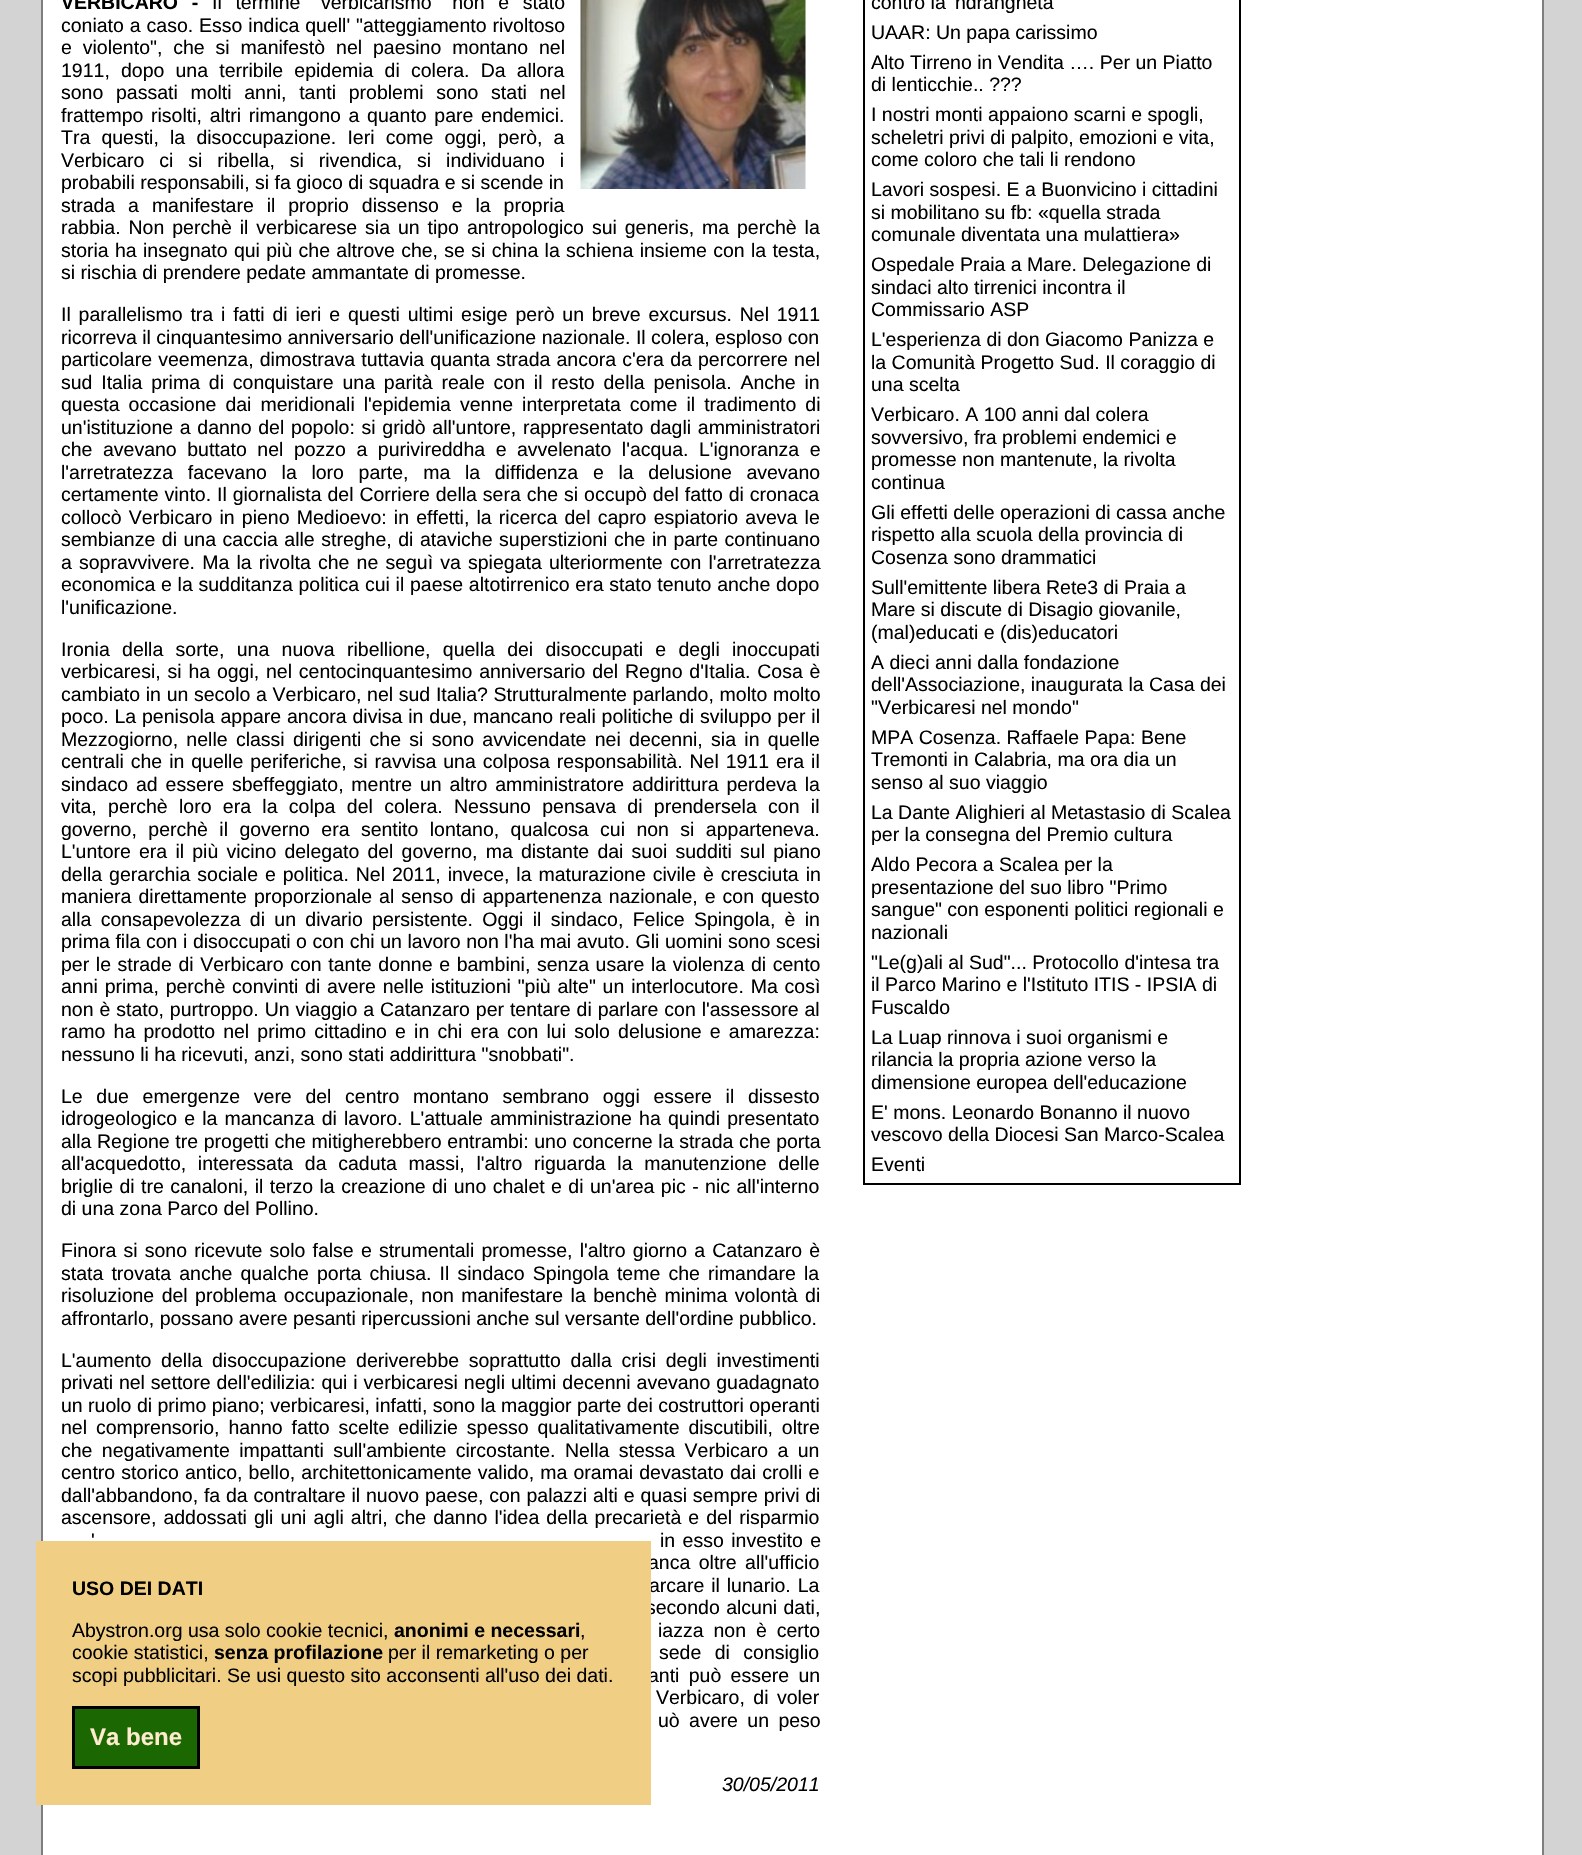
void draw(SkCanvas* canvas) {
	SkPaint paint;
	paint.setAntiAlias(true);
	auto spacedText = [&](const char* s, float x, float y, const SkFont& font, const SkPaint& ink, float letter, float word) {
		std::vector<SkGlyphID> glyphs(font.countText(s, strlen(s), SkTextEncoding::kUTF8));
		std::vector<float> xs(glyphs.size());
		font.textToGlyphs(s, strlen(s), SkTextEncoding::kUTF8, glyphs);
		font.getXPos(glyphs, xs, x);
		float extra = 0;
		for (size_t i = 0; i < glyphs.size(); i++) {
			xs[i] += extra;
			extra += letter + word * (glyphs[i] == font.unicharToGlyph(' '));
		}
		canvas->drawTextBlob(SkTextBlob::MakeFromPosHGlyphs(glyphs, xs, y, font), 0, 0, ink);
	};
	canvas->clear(0xffd3d3d3);
	paint.setColor(0xffffffff);
	canvas->drawRect(SkRect::MakeXYWH(42, -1, 1501, 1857), paint);
	paint.setStroke(true);
	paint.setStrokeWidth(2);
	paint.setColor(0xff7e7e7e);
	canvas->drawRect(SkRect::MakeXYWH(42, -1, 1501, 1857), paint);
	SkFont f1(fontMgr->matchFamilyStyle("Liberation Sans", SkFontStyle::Bold()), 19.5);
	f1.setSubpixel(true);
	paint.setStroke(false);
	paint.setColor(0xff000000);
	spacedText("VERBICARO -", 61, 9, f1, paint, 0, 8.25);
	SkFont f2(fontMgr->matchFamilyStyle("Liberation Sans", SkFontStyle::Normal()), 19.5);
	f2.setSubpixel(true);
	spacedText("Il termine \"verbicarismo\" non è stato", 212, 9, f2, paint, 0, 8.25);
	spacedText("coniato a caso. Esso indica quell' \"atteggiamento rivoltoso", 61, 32, f2, paint, 0, 0.5);
	spacedText("e violento\", che si manifestò nel paesino montano nel", 61, 54, f2, paint, 0, 5.5);
	spacedText("1911, dopo una terribile epidemia di colera. Da allora", 61, 77, f2, paint, 0, 5.75);
	spacedText("sono passati molti anni, tanti problemi sono stati nel", 61, 99, f2, paint, 0, 7.25);
	spacedText("frattempo risolti, altri rimangono a quanto pare endemici.", 61, 122, f2, paint, 0, 2.25);
	spacedText("Tra questi, la disoccupazione. Ieri come oggi, però, a", 61, 144, f2, paint, 0, 5.75);
	spacedText("Verbicaro ci si ribella, si rivendica, si individuano i", 61, 167, f2, paint, 0, 9.5);
	canvas->drawString("probabili responsabili, si fa gioco di squadra e si scende in", 61, 189, f2, paint);
	spacedText("strada a manifestare il proprio dissenso e la propria", 61, 212, f2, paint, 0, 7.5);
	spacedText("rabbia. Non perchè il verbicarese sia un tipo antropologico sui generis, ma perchè la", 61, 234, f2, paint, 0, 2.5);
	spacedText("storia ha insegnato qui più che altrove che, se si china la schiena insieme con la testa,", 61, 257, f2, paint, 0, 0.9);
	canvas->drawString("si rischia di prendere pedate ammantate di promesse.", 61, 279, f2, paint);
	canvas->drawImageRect(SkImages::DeferredFromEncodedData(SkData::MakeFromFileName("img1.png")), SkRect::MakeXYWH(580, 0, 226, 189), SkSamplingOptions());
	spacedText("Il parallelismo tra i fatti di ieri e questi ultimi esige però un breve excursus. Nel 1911", 61, 321, f2, paint, 0, 2.4);
	canvas->drawString("ricorreva il cinquantesimo anniversario dell'unificazione nazionale. Il colera, esploso con", 61, 344, f2, paint);
	spacedText("particolare veemenza, dimostrava tuttavia quanta strada ancora c'era da percorrere nel", 61, 366, f2, paint, 0, 0.75);
	spacedText("sud Italia prima di conquistare una parità reale con il resto della penisola. Anche in", 61, 389, f2, paint, 0, 3.4);
	spacedText("questa occasione dai meridionali l'epidemia venne interpretata come il tradimento di", 61, 411, f2, paint, 0, 3.6);
	spacedText("un'istituzione a danno del popolo: si gridò all'untore, rappresentato dagli amministratori", 61, 434, f2, paint, 0, 1.25);
	spacedText("che avevano buttato nel pozzo a purivireddha e avvelenato l'acqua. L'ignoranza e", 61, 456, f2, paint, 0, 5.1);
	spacedText("l'arretratezza facevano la loro parte, ma la diffidenza e la delusione avevano", 61, 479, f2, paint, 0, 9.25);
	spacedText("certamente vinto. Il giornalista del Corriere della sera che si occupò del fatto di cronaca", 61, 501, f2, paint, 0, 0.5);
	spacedText("collocò Verbicaro in pieno Medioevo: in effetti, la ricerca del capro espiatorio aveva le", 61, 524, f2, paint, 0, 1.75);
	spacedText("sembianze di una caccia alle streghe, di ataviche superstizioni che in parte continuano", 61, 546, f2, paint, 0, 1.1);
	spacedText("a sopravvivere. Ma la rivolta che ne seguì va spiegata ulteriormente con l'arretratezza", 61, 569, f2, paint, 0, 1.75);
	spacedText("economica e la sudditanza politica cui il paese altotirrenico era stato tenuto anche dopo", 61, 591, f2, paint, 0, 0.3);
	canvas->drawString("l'unificazione.", 61, 614, f2, paint);
	spacedText("Ironia della sorte, una nuova ribellione, quella dei disoccupati e degli inoccupati", 61, 656, f2, paint, 0, 6.9);
	spacedText("verbicaresi, si ha oggi, nel centocinquantesimo anniversario del Regno d'Italia. Cosa è", 61, 678, f2, paint, 0, 1.4);
	spacedText("cambiato in un secolo a Verbicaro, nel sud Italia? Strutturalmente parlando, molto molto", 61, 701, f2, paint, 0, 0.25);
	spacedText("poco. La penisola appare ancora divisa in due, mancano reali politiche di sviluppo per il", 61, 723, f2, paint, 0, 0.4);
	spacedText("Mezzogiorno, nelle classi dirigenti che si sono avvicendate nei decenni, sia in quelle", 61, 746, f2, paint, 0, 2.9);
	spacedText("centrali che in quelle periferiche, si ravvisa una colposa responsabilità. Nel 1911 era il", 61, 768, f2, paint, 0, 1.5);
	spacedText("sindaco ad essere sbeffeggiato, mentre un altro amministratore addirittura perdeva la", 61, 791, f2, paint, 0, 2.4);
	spacedText("vita, perchè loro era la colpa del colera. Nessuno pensava di prendersela con il", 61, 813, f2, paint, 0, 5.9);
	spacedText("governo, perchè il governo era sentito lontano, qualcosa cui non si apparteneva.", 61, 836, f2, paint, 0, 6);
	spacedText("L'untore era il più vicino delegato del governo, ma distante dai suoi sudditi sul piano", 61, 858, f2, paint, 0, 2.75);
	spacedText("della gerarchia sociale e politica. Nel 2011, invece, la maturazione civile è cresciuta in", 61, 881, f2, paint, 0, 1.5);
	spacedText("maniera direttamente proporzionale al senso di appartenenza nazionale, e con questo", 61, 903, f2, paint, 0, 1.6);
	spacedText("alla consapevolezza di un divario persistente. Oggi il sindaco, Felice Spingola, è in", 61, 926, f2, paint, 0, 3.9);
	spacedText("prima fila con i disoccupati o con chi un lavoro non l'ha mai avuto. Gli uomini sono scesi", 61, 948, f2, paint, 0, 0.2);
	spacedText("per le strade di Verbicaro con tante donne e bambini, senza usare la violenza di cento", 61, 971, f2, paint, 0, 1.2);
	spacedText("anni prima, perchè convinti di avere nelle istituzioni \"più alte\" un interlocutore. Ma così", 61, 993, f2, paint, 0, 1.4);
	spacedText("non è stato, purtroppo. Un viaggio a Catanzaro per tentare di parlare con l'assessore al", 61, 1016, f2, paint, 0, 0.5);
	spacedText("ramo ha prodotto nel primo cittadino e in chi era con lui solo delusione e amarezza:", 61, 1038, f2, paint, 0, 2.75);
	canvas->drawString("nessuno li ha ricevuti, anzi, sono stati addirittura \"snobbati\".", 61, 1061, f2, paint);
	spacedText("Le due emergenze vere del centro montano sembrano oggi essere il dissesto", 61, 1103, f2, paint, 0, 8.25);
	spacedText("idrogeologico e la mancanza di lavoro. L'attuale amministrazione ha quindi presentato", 61, 1125, f2, paint, 0, 1.75);
	spacedText("alla Regione tre progetti che mitigherebbero entrambi: uno concerne la strada che porta", 61, 1148, f2, paint, 0, 0.25);
	spacedText("all'acquedotto, interessata da caduta massi, l'altro riguarda la manutenzione delle", 61, 1170, f2, paint, 0, 6.25);
	spacedText("briglie di tre canaloni, il terzo la creazione di uno chalet e di un'area pic - nic all'interno", 61, 1193, f2, paint, 0, 1);
	canvas->drawString("di una zona Parco del Pollino.", 61, 1215, f2, paint);
	spacedText("Finora si sono ricevute solo false e strumentali promesse, l'altro giorno a Catanzaro è", 61, 1257, f2, paint, 0, 1.75);
	spacedText("stata trovata anche qualche porta chiusa. Il sindaco Spingola teme che rimandare la", 61, 1280, f2, paint, 0, 2.75);
	spacedText("risoluzione del problema occupazionale, non manifestare la benchè minima volontà di", 61, 1302, f2, paint, 0, 2);
	canvas->drawString("affrontarlo, possano avere pesanti ripercussioni anche sul versante dell'ordine pubblico.", 61, 1325, f2, paint);
	spacedText("L'aumento della disoccupazione deriverebbe soprattutto dalla crisi degli investimenti", 61, 1367, f2, paint, 0, 4.25);
	spacedText("privati nel settore dell'edilizia: qui i verbicaresi negli ultimi decenni avevano guadagnato", 61, 1389, f2, paint, 0, 0.5);
	canvas->drawString("un ruolo di primo piano; verbicaresi, infatti, sono la maggior parte dei costruttori operanti", 61, 1412, f2, paint);
	spacedText("nel comprensorio, hanno fatto scelte edilizie spesso qualitativamente discutibili, oltre", 61, 1434, f2, paint, 0, 3.5);
	spacedText("che negativamente impattanti sull'ambiente circostante. Nella stessa Verbicaro a un", 61, 1457, f2, paint, 0, 4);
	spacedText("centro storico antico, bello, architettonicamente valido, ma oramai devastato dai crolli e", 61, 1479, f2, paint, 0, 0.75);
	spacedText("dall'abbandono, fa da contraltare il nuovo paese, con palazzi alti e quasi sempre privi di", 61, 1502, f2, paint, 0, 0.4);
	spacedText("ascensore, addossati gli uni agli altri, che danno l'idea della precarietà e del risparmio", 61, 1524, f2, paint, 0, 1.6);
	spacedText("'", 91, 1547, f2, paint, 0, 2);
	spacedText("in esso investito e", 660, 1547, f2, paint, 0, 2);
	spacedText("anca oltre all'ufficio", 648, 1569, f2, paint, 0, 3);
	spacedText("arcare il lunario. La", 649, 1592, f2, paint, 0, 1.5);
	spacedText("secondo alcuni dati,", 646, 1614, f2, paint, 0, 1);
	spacedText("iazza non è certo", 658, 1637, f2, paint, 0, 4.5);
	spacedText("sede di consiglio", 659, 1659, f2, paint, 0, 8);
	spacedText("anti può essere un", 648, 1682, f2, paint, 0, 3.9);
	spacedText("Verbicaro, di voler", 656, 1704, f2, paint, 0, 3);
	spacedText("uò avere un peso", 658, 1727, f2, paint, 0, 4);
	SkFont f3(fontMgr->matchFamilyStyle("Liberation Sans", SkFontStyle::Italic()), 19.5);
	f3.setSubpixel(true);
	canvas->drawString("30/05/2011", 722, 1791, f3, paint);
	paint.setStroke(true);
	canvas->drawRect(SkRect::MakeXYWH(864, -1, 376, 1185), paint);
	paint.setStroke(false);
	canvas->drawString("contro la 'ndrangheta", 871, 9, f2, paint);
	canvas->drawString("UAAR: Un papa carissimo", 871, 39, f2, paint);
	canvas->drawString("Alto Tirreno in Vendita …. Per un Piatto", 871, 69, f2, paint);
	canvas->drawString("di lenticchie.. ?\077?", 871, 91, f2, paint);
	canvas->drawString("I nostri monti appaiono scarni e spogli,", 871, 121, f2, paint);
	canvas->drawString("scheletri privi di palpito, emozioni e vita,", 871, 144, f2, paint);
	canvas->drawString("come coloro che tali li rendono", 871, 166, f2, paint);
	canvas->drawString("Lavori sospesi. E a Buonvicino i cittadini", 871, 196, f2, paint);
	canvas->drawString("si mobilitano su fb: «quella strada", 871, 219, f2, paint);
	canvas->drawString("comunale diventata una mulattiera»", 871, 241, f2, paint);
	canvas->drawString("Ospedale Praia a Mare. Delegazione di", 871, 271, f2, paint);
	canvas->drawString("sindaci alto tirrenici incontra il", 871, 294, f2, paint);
	canvas->drawString("Commissario ASP", 871, 316, f2, paint);
	canvas->drawString("L'esperienza di don Giacomo Panizza e", 871, 346, f2, paint);
	canvas->drawString("la Comunità Progetto Sud. Il coraggio di", 871, 369, f2, paint);
	canvas->drawString("una scelta", 871, 391, f2, paint);
	canvas->drawString("Verbicaro. A 100 anni dal colera", 871, 421, f2, paint);
	canvas->drawString("sovversivo, fra problemi endemici e", 871, 444, f2, paint);
	canvas->drawString("promesse non mantenute, la rivolta", 871, 466, f2, paint);
	canvas->drawString("continua", 871, 489, f2, paint);
	canvas->drawString("Gli effetti delle operazioni di cassa anche", 871, 519, f2, paint);
	canvas->drawString("rispetto alla scuola della provincia di", 871, 541, f2, paint);
	canvas->drawString("Cosenza sono drammatici", 871, 564, f2, paint);
	canvas->drawString("Sull'emittente libera Rete3 di Praia a", 871, 594, f2, paint);
	canvas->drawString("Mare si discute di Disagio giovanile,", 871, 616, f2, paint);
	canvas->drawString("(mal)educati e (dis)educatori", 871, 639, f2, paint);
	canvas->drawString("A dieci anni dalla fondazione", 871, 669, f2, paint);
	canvas->drawString("dell'Associazione, inaugurata la Casa dei", 871, 691, f2, paint);
	canvas->drawString("\"Verbicaresi nel mondo\"", 871, 714, f2, paint);
	canvas->drawString("MPA Cosenza. Raffaele Papa: Bene", 871, 744, f2, paint);
	canvas->drawString("Tremonti in Calabria, ma ora dia un", 871, 766, f2, paint);
	canvas->drawString("senso al suo viaggio", 871, 789, f2, paint);
	canvas->drawString("La Dante Alighieri al Metastasio di Scalea", 871, 819, f2, paint);
	canvas->drawString("per la consegna del Premio cultura", 871, 841, f2, paint);
	canvas->drawString("Aldo Pecora a Scalea per la", 871, 871, f2, paint);
	canvas->drawString("presentazione del suo libro \"Primo", 871, 894, f2, paint);
	canvas->drawString("sangue\" con esponenti politici regionali e", 871, 916, f2, paint);
	canvas->drawString("nazionali", 871, 939, f2, paint);
	canvas->drawString("\"Le(g)ali al Sud\"... Protocollo d'intesa tra", 871, 969, f2, paint);
	canvas->drawString("il Parco Marino e l'Istituto ITIS - IPSIA di", 871, 991, f2, paint);
	canvas->drawString("Fuscaldo", 871, 1014, f2, paint);
	canvas->drawString("La Luap rinnova i suoi organismi e", 871, 1044, f2, paint);
	canvas->drawString("rilancia la propria azione verso la", 871, 1066, f2, paint);
	canvas->drawString("dimensione europea dell'educazione", 871, 1089, f2, paint);
	canvas->drawString("E' mons. Leonardo Bonanno il nuovo", 871, 1119, f2, paint);
	canvas->drawString("vescovo della Diocesi San Marco-Scalea", 871, 1141, f2, paint);
	canvas->drawString("Eventi", 871, 1171, f2, paint);
	paint.setColor(0xfff0ce84);
	canvas->drawRect(SkRect::MakeXYWH(36, 1541, 615, 264), paint);
	paint.setColor(0xff000000);
	canvas->drawString("USO DEI DATI", 72, 1595, f1, paint);
	canvas->drawString("Abystron.org usa solo cookie tecnici,", 72, 1637, f2, paint);
	canvas->drawString("anonimi e necessari", 394, 1637, f1, paint);
	canvas->drawString(",", 580, 1637, f2, paint);
	canvas->drawString("cookie statistici,", 72, 1659, f2, paint);
	canvas->drawString("senza profilazione", 214, 1659, f1, paint);
	canvas->drawString("per il remarketing o per", 388, 1659, f2, paint);
	canvas->drawString("scopi pubblicitari. Se usi questo sito acconsenti all'uso dei dati.", 72, 1682, f2, paint);
	paint.setColor(0xff1b6702);
	canvas->drawRect(SkRect::MakeXYWH(73.5, 1707.5, 125, 60), paint);
	paint.setStroke(true);
	paint.setStrokeWidth(3);
	paint.setColor(0xff000000);
	canvas->drawRect(SkRect::MakeXYWH(73.5, 1707.5, 125, 60), paint);
	SkFont f4(fontMgr->matchFamilyStyle("Liberation Sans", SkFontStyle::Bold()), 24);
	f4.setSubpixel(true);
	paint.setStroke(false);
	paint.setColor(0xffffebcd);
	canvas->drawString("Va bene", 90, 1745, f4, paint);
}
